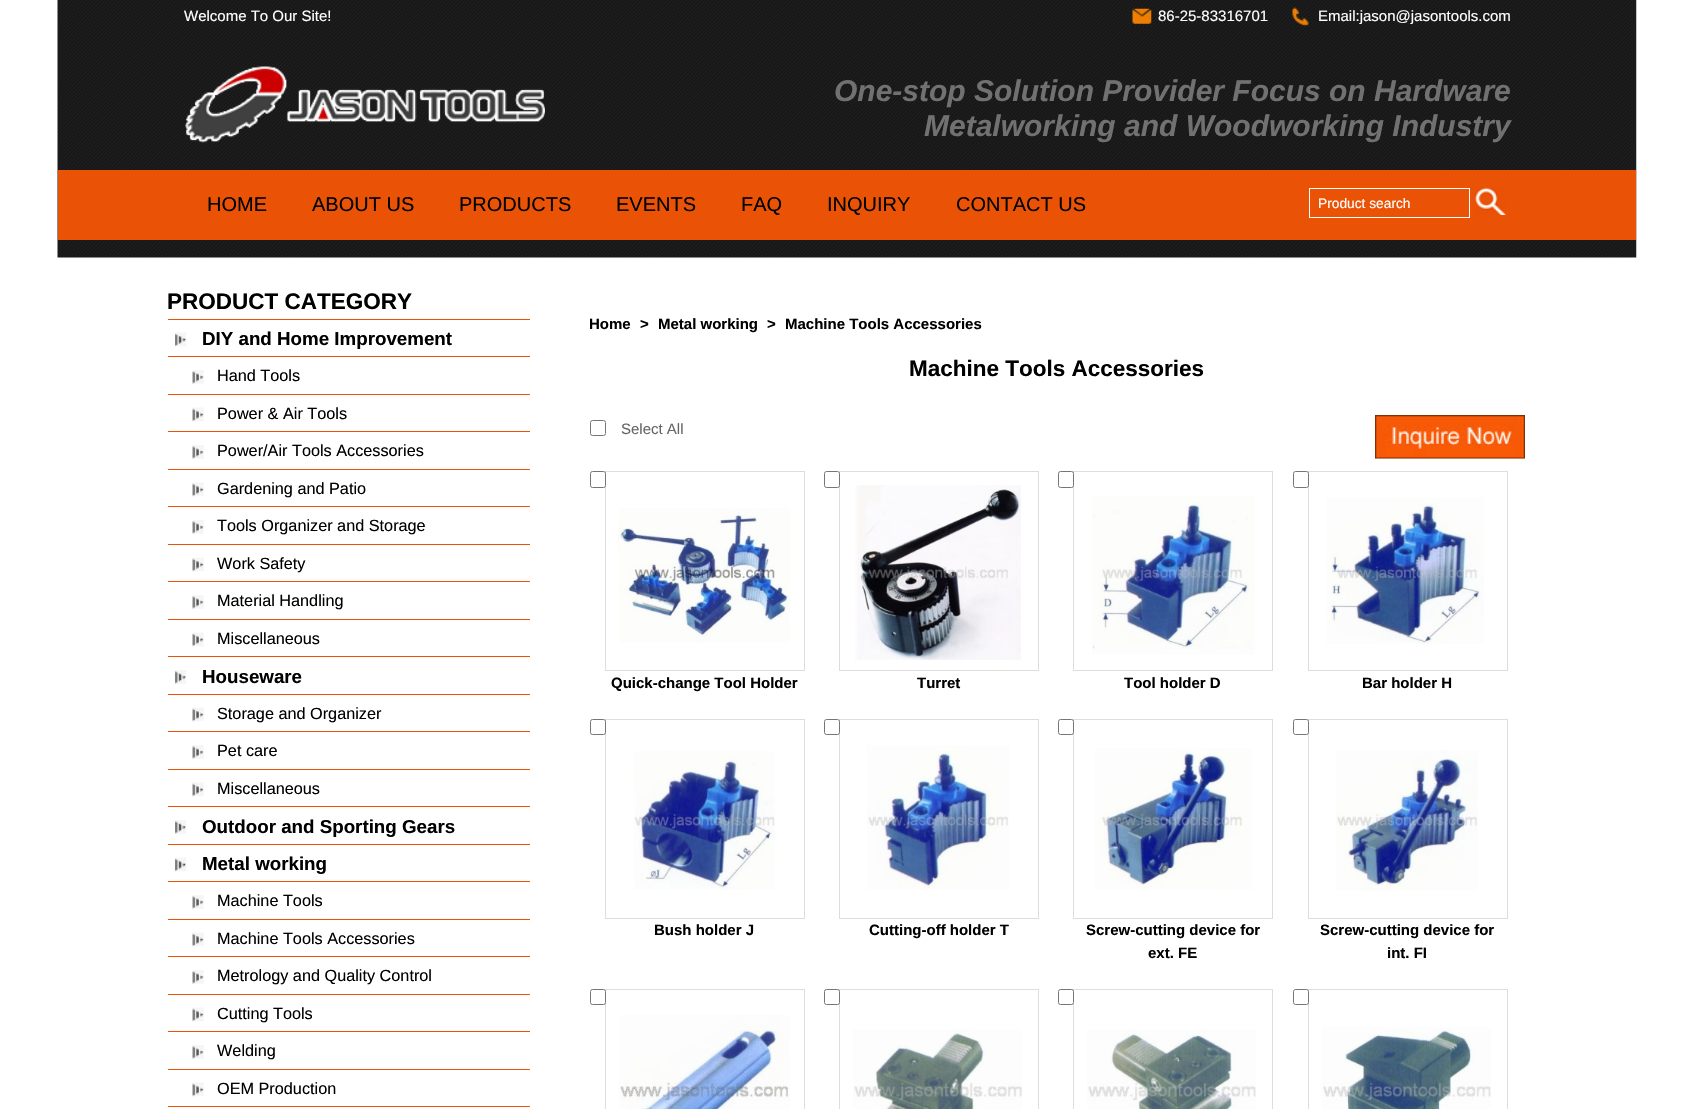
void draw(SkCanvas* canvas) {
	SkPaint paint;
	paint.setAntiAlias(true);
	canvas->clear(0xffffffff);
	canvas->drawImageRect(SkImages::DeferredFromEncodedData(SkData::MakeFromFileName("img1.png")), SkRect::MakeXYWH(57, 0, 1580, 258), SkSamplingOptions());
	SkFont f1(fontMgr->matchFamilyStyle("Liberation Sans", SkFontStyle::Normal()), 15);
	f1.setSubpixel(true);
	paint.setColor(0xffffffff);
	canvas->drawString("Welcome To Our Site!", 184, 21, f1, paint);
	canvas->drawImageRect(SkImages::DeferredFromEncodedData(SkData::MakeFromFileName("img2.png")), SkRect::MakeXYWH(1132, 7, 20, 20), SkSamplingOptions());
	canvas->drawString("86-25-83316701", 1158, 21, f1, paint);
	canvas->drawImageRect(SkImages::DeferredFromEncodedData(SkData::MakeFromFileName("img3.png")), SkRect::MakeXYWH(1292, 7, 17, 20), SkSamplingOptions());
	canvas->drawString("Email:jason@jasontools.com", 1318, 21, f1, paint);
	canvas->drawImageRect(SkImages::DeferredFromEncodedData(SkData::MakeFromFileName("img4.png")), SkRect::MakeXYWH(185, 66, 360, 77), SkSamplingOptions());
	SkFont f2(fontMgr->matchFamilyStyle("Liberation Sans", SkFontStyle::BoldItalic()), 30);
	f2.setSubpixel(true);
	paint.setColor(0xff717171);
	canvas->drawString("One-stop Solution Provider Focus on Hardware", 834, 101, f2, paint);
	canvas->drawString("Metalworking and Woodworking Industry", 924, 136, f2, paint);
	paint.setColor(0xffea5206);
	canvas->drawRect(SkRect::MakeXYWH(58, 170, 1578, 70), paint);
	SkFont f3(fontMgr->matchFamilyStyle("Liberation Sans", SkFontStyle::Normal()), 20);
	f3.setSubpixel(true);
	paint.setColor(0xff000000);
	canvas->drawString("HOME", 207, 211, f3, paint);
	canvas->drawString("ABOUT US", 312, 211, f3, paint);
	canvas->drawString("PRODUCTS", 459, 211, f3, paint);
	canvas->drawString("EVENTS", 616, 211, f3, paint);
	canvas->drawString("FAQ", 741, 211, f3, paint);
	canvas->drawString("INQUIRY", 827, 211, f3, paint);
	canvas->drawString("CONTACT US", 956, 211, f3, paint);
	paint.setStroke(true);
	paint.setStrokeWidth(1);
	paint.setColor(0xffffffff);
	canvas->drawRect(SkRect::MakeXYWH(1309.5, 188.5, 160, 29), paint);
	SkFont f4(fontMgr->matchFamilyStyle("Liberation Sans", SkFontStyle::Normal()), 13.75);
	f4.setSubpixel(true);
	paint.setStroke(false);
	canvas->drawString("Product search", 1318, 208, f4, paint);
	canvas->drawImageRect(SkImages::DeferredFromEncodedData(SkData::MakeFromFileName("img5.png")), SkRect::MakeXYWH(1475, 187, 32, 28), SkSamplingOptions());
	SkFont f5(fontMgr->matchFamilyStyle("Liberation Sans", SkFontStyle::Bold()), 22.5);
	f5.setSubpixel(true);
	paint.setColor(0xff000000);
	canvas->drawString("PRODUCT CATEGORY", 167, 309, f5, paint);
	canvas->drawImageRect(SkImages::DeferredFromEncodedData(SkData::MakeFromFileName("img6.png")), SkRect::MakeXYWH(175, 332, 12, 15), SkSamplingOptions());
	paint.setColor(0xffea5206);
	canvas->drawRect(SkRect::MakeXYWH(168, 319, 362, 1), paint);
	SkFont f6(fontMgr->matchFamilyStyle("Liberation Sans", SkFontStyle::Bold()), 18.75);
	f6.setSubpixel(true);
	paint.setColor(0xff000000);
	canvas->drawString("DIY and Home Improvement", 202, 345, f6, paint);
	canvas->drawImageRect(SkImages::DeferredFromEncodedData(SkData::MakeFromFileName("img7.png")), SkRect::MakeXYWH(192, 370, 12, 14), SkSamplingOptions());
	paint.setColor(0xffea5206);
	canvas->drawRect(SkRect::MakeXYWH(168, 356, 362, 1), paint);
	SkFont f7(fontMgr->matchFamilyStyle("Liberation Sans", SkFontStyle::Normal()), 16.25);
	f7.setSubpixel(true);
	paint.setColor(0xff000000);
	canvas->drawString("Hand Tools", 217, 381, f7, paint);
	canvas->drawImageRect(SkImages::DeferredFromEncodedData(SkData::MakeFromFileName("img8.png")), SkRect::MakeXYWH(192, 407, 12, 15), SkSamplingOptions());
	paint.setColor(0xffea5206);
	canvas->drawRect(SkRect::MakeXYWH(168, 394, 362, 1), paint);
	paint.setColor(0xff000000);
	canvas->drawString("Power & Air Tools", 217, 419, f7, paint);
	canvas->drawImageRect(SkImages::DeferredFromEncodedData(SkData::MakeFromFileName("img7.png")), SkRect::MakeXYWH(192, 445, 12, 14), SkSamplingOptions());
	paint.setColor(0xffea5206);
	canvas->drawRect(SkRect::MakeXYWH(168, 431, 362, 1), paint);
	paint.setColor(0xff000000);
	canvas->drawString("Power/Air Tools Accessories", 217, 456, f7, paint);
	canvas->drawImageRect(SkImages::DeferredFromEncodedData(SkData::MakeFromFileName("img8.png")), SkRect::MakeXYWH(192, 482, 12, 15), SkSamplingOptions());
	paint.setColor(0xffea5206);
	canvas->drawRect(SkRect::MakeXYWH(168, 469, 362, 1), paint);
	paint.setColor(0xff000000);
	canvas->drawString("Gardening and Patio", 217, 494, f7, paint);
	canvas->drawImageRect(SkImages::DeferredFromEncodedData(SkData::MakeFromFileName("img7.png")), SkRect::MakeXYWH(192, 520, 12, 14), SkSamplingOptions());
	paint.setColor(0xffea5206);
	canvas->drawRect(SkRect::MakeXYWH(168, 506, 362, 1), paint);
	paint.setColor(0xff000000);
	canvas->drawString("Tools Organizer and Storage", 217, 531, f7, paint);
	canvas->drawImageRect(SkImages::DeferredFromEncodedData(SkData::MakeFromFileName("img8.png")), SkRect::MakeXYWH(192, 557, 12, 15), SkSamplingOptions());
	paint.setColor(0xffea5206);
	canvas->drawRect(SkRect::MakeXYWH(168, 544, 362, 1), paint);
	paint.setColor(0xff000000);
	canvas->drawString("Work Safety", 217, 569, f7, paint);
	canvas->drawImageRect(SkImages::DeferredFromEncodedData(SkData::MakeFromFileName("img7.png")), SkRect::MakeXYWH(192, 595, 12, 14), SkSamplingOptions());
	paint.setColor(0xffea5206);
	canvas->drawRect(SkRect::MakeXYWH(168, 581, 362, 1), paint);
	paint.setColor(0xff000000);
	canvas->drawString("Material Handling", 217, 606, f7, paint);
	canvas->drawImageRect(SkImages::DeferredFromEncodedData(SkData::MakeFromFileName("img8.png")), SkRect::MakeXYWH(192, 632, 12, 15), SkSamplingOptions());
	paint.setColor(0xffea5206);
	canvas->drawRect(SkRect::MakeXYWH(168, 619, 362, 1), paint);
	paint.setColor(0xff000000);
	canvas->drawString("Miscellaneous", 217, 644, f7, paint);
	canvas->drawImageRect(SkImages::DeferredFromEncodedData(SkData::MakeFromFileName("img9.png")), SkRect::MakeXYWH(175, 670, 12, 14), SkSamplingOptions());
	paint.setColor(0xffea5206);
	canvas->drawRect(SkRect::MakeXYWH(168, 656, 362, 1), paint);
	paint.setColor(0xff000000);
	canvas->drawString("Houseware", 202, 683, f6, paint);
	canvas->drawImageRect(SkImages::DeferredFromEncodedData(SkData::MakeFromFileName("img8.png")), SkRect::MakeXYWH(192, 707, 12, 15), SkSamplingOptions());
	paint.setColor(0xffea5206);
	canvas->drawRect(SkRect::MakeXYWH(168, 694, 362, 1), paint);
	paint.setColor(0xff000000);
	canvas->drawString("Storage and Organizer", 217, 719, f7, paint);
	canvas->drawImageRect(SkImages::DeferredFromEncodedData(SkData::MakeFromFileName("img7.png")), SkRect::MakeXYWH(192, 745, 12, 14), SkSamplingOptions());
	paint.setColor(0xffea5206);
	canvas->drawRect(SkRect::MakeXYWH(168, 731, 362, 1), paint);
	paint.setColor(0xff000000);
	canvas->drawString("Pet care", 217, 756, f7, paint);
	canvas->drawImageRect(SkImages::DeferredFromEncodedData(SkData::MakeFromFileName("img8.png")), SkRect::MakeXYWH(192, 782, 12, 15), SkSamplingOptions());
	paint.setColor(0xffea5206);
	canvas->drawRect(SkRect::MakeXYWH(168, 769, 362, 1), paint);
	paint.setColor(0xff000000);
	canvas->drawString("Miscellaneous", 217, 794, f7, paint);
	canvas->drawImageRect(SkImages::DeferredFromEncodedData(SkData::MakeFromFileName("img9.png")), SkRect::MakeXYWH(175, 820, 12, 14), SkSamplingOptions());
	paint.setColor(0xffea5206);
	canvas->drawRect(SkRect::MakeXYWH(168, 806, 362, 1), paint);
	paint.setColor(0xff000000);
	canvas->drawString("Outdoor and Sporting Gears", 202, 833, f6, paint);
	canvas->drawImageRect(SkImages::DeferredFromEncodedData(SkData::MakeFromFileName("img6.png")), SkRect::MakeXYWH(175, 857, 12, 15), SkSamplingOptions());
	paint.setColor(0xffea5206);
	canvas->drawRect(SkRect::MakeXYWH(168, 844, 362, 1), paint);
	paint.setColor(0xff000000);
	canvas->drawString("Metal working", 202, 870, f6, paint);
	canvas->drawImageRect(SkImages::DeferredFromEncodedData(SkData::MakeFromFileName("img7.png")), SkRect::MakeXYWH(192, 895, 12, 14), SkSamplingOptions());
	paint.setColor(0xffea5206);
	canvas->drawRect(SkRect::MakeXYWH(168, 881, 362, 1), paint);
	paint.setColor(0xff000000);
	canvas->drawString("Machine Tools", 217, 906, f7, paint);
	canvas->drawImageRect(SkImages::DeferredFromEncodedData(SkData::MakeFromFileName("img8.png")), SkRect::MakeXYWH(192, 932, 12, 15), SkSamplingOptions());
	paint.setColor(0xffea5206);
	canvas->drawRect(SkRect::MakeXYWH(168, 919, 362, 1), paint);
	paint.setColor(0xff000000);
	canvas->drawString("Machine Tools Accessories", 217, 944, f7, paint);
	canvas->drawImageRect(SkImages::DeferredFromEncodedData(SkData::MakeFromFileName("img7.png")), SkRect::MakeXYWH(192, 970, 12, 14), SkSamplingOptions());
	paint.setColor(0xffea5206);
	canvas->drawRect(SkRect::MakeXYWH(168, 956, 362, 1), paint);
	paint.setColor(0xff000000);
	canvas->drawString("Metrology and Quality Control", 217, 981, f7, paint);
	canvas->drawImageRect(SkImages::DeferredFromEncodedData(SkData::MakeFromFileName("img8.png")), SkRect::MakeXYWH(192, 1007, 12, 15), SkSamplingOptions());
	paint.setColor(0xffea5206);
	canvas->drawRect(SkRect::MakeXYWH(168, 994, 362, 1), paint);
	paint.setColor(0xff000000);
	canvas->drawString("Cutting Tools", 217, 1019, f7, paint);
	canvas->drawImageRect(SkImages::DeferredFromEncodedData(SkData::MakeFromFileName("img7.png")), SkRect::MakeXYWH(192, 1045, 12, 14), SkSamplingOptions());
	paint.setColor(0xffea5206);
	canvas->drawRect(SkRect::MakeXYWH(168, 1031, 362, 1), paint);
	paint.setColor(0xff000000);
	canvas->drawString("Welding", 217, 1056, f7, paint);
	canvas->drawImageRect(SkImages::DeferredFromEncodedData(SkData::MakeFromFileName("img8.png")), SkRect::MakeXYWH(192, 1082, 12, 15), SkSamplingOptions());
	paint.setColor(0xffea5206);
	canvas->drawRect(SkRect::MakeXYWH(168, 1069, 362, 1), paint);
	paint.setColor(0xff000000);
	canvas->drawString("OEM Production", 217, 1094, f7, paint);
	paint.setColor(0xffea5206);
	canvas->drawRect(SkRect::MakeXYWH(168, 1106, 362, 1), paint);
	SkFont f8(fontMgr->matchFamilyStyle("Liberation Sans", SkFontStyle::Bold()), 15);
	f8.setSubpixel(true);
	paint.setColor(0xff000000);
	canvas->drawString("Home", 589, 329, f8, paint);
	canvas->drawString(">", 640, 329, f8, paint);
	canvas->drawString("Metal working", 658, 329, f8, paint);
	canvas->drawString(">", 767, 329, f8, paint);
	canvas->drawString("Machine Tools Accessories", 785, 329, f8, paint);
	canvas->drawString("Machine Tools Accessories", 909, 376, f5, paint);
	paint.setStroke(true);
	paint.setColor(0xff767676);
	canvas->drawRoundRect(SkRect::MakeXYWH(590.5, 420.5, 15, 15), 2, 2, paint);
	paint.setStroke(false);
	paint.setColor(0xff666666);
	canvas->drawString("Select All", 621, 434, f1, paint);
	canvas->drawImageRect(SkImages::DeferredFromEncodedData(SkData::MakeFromFileName("img10.png")), SkRect::MakeXYWH(1375, 415, 150, 44), SkSamplingOptions());
	paint.setStroke(true);
	paint.setColor(0xffdddddd);
	canvas->drawRect(SkRect::MakeXYWH(605.5, 471.5, 199, 199), paint);
	paint.setStroke(false);
	paint.setColor(0xffffffff);
	canvas->drawRoundRect(SkRect::MakeXYWH(590.5, 471.5, 15, 16), 2, 2, paint);
	paint.setStroke(true);
	paint.setColor(0xff767676);
	canvas->drawRoundRect(SkRect::MakeXYWH(590.5, 471.5, 15, 16), 2, 2, paint);
	canvas->drawImageRect(SkImages::DeferredFromEncodedData(SkData::MakeFromFileName("img11.png")), SkRect::MakeXYWH(617, 508, 173, 135), SkSamplingOptions());
	paint.setStroke(false);
	paint.setColor(0xff000000);
	canvas->drawString("Quick-change Tool Holder", 611, 688, f8, paint);
	paint.setStroke(true);
	paint.setColor(0xffdddddd);
	canvas->drawRect(SkRect::MakeXYWH(839.5, 471.5, 199, 199), paint);
	paint.setStroke(false);
	paint.setColor(0xffffffff);
	canvas->drawRoundRect(SkRect::MakeXYWH(824.5, 471.5, 15, 16), 2, 2, paint);
	paint.setStroke(true);
	paint.setColor(0xff767676);
	canvas->drawRoundRect(SkRect::MakeXYWH(824.5, 471.5, 15, 16), 2, 2, paint);
	canvas->drawImageRect(SkImages::DeferredFromEncodedData(SkData::MakeFromFileName("img12.png")), SkRect::MakeXYWH(855, 485, 166, 175), SkSamplingOptions());
	paint.setStroke(false);
	paint.setColor(0xff000000);
	canvas->drawString("Turret", 917, 688, f8, paint);
	paint.setStroke(true);
	paint.setColor(0xffdddddd);
	canvas->drawRect(SkRect::MakeXYWH(1073.5, 471.5, 199, 199), paint);
	paint.setStroke(false);
	paint.setColor(0xffffffff);
	canvas->drawRoundRect(SkRect::MakeXYWH(1058.5, 471.5, 15, 16), 2, 2, paint);
	paint.setStroke(true);
	paint.setColor(0xff767676);
	canvas->drawRoundRect(SkRect::MakeXYWH(1058.5, 471.5, 15, 16), 2, 2, paint);
	canvas->drawImageRect(SkImages::DeferredFromEncodedData(SkData::MakeFromFileName("img13.png")), SkRect::MakeXYWH(1092, 496, 163, 159), SkSamplingOptions());
	paint.setStroke(false);
	paint.setColor(0xff000000);
	canvas->drawString("Tool holder D", 1124, 688, f8, paint);
	paint.setStroke(true);
	paint.setColor(0xffdddddd);
	canvas->drawRect(SkRect::MakeXYWH(1308.5, 471.5, 199, 199), paint);
	paint.setStroke(false);
	paint.setColor(0xffffffff);
	canvas->drawRoundRect(SkRect::MakeXYWH(1293.5, 471.5, 15, 16), 2, 2, paint);
	paint.setStroke(true);
	paint.setColor(0xff767676);
	canvas->drawRoundRect(SkRect::MakeXYWH(1293.5, 471.5, 15, 16), 2, 2, paint);
	canvas->drawImageRect(SkImages::DeferredFromEncodedData(SkData::MakeFromFileName("img14.png")), SkRect::MakeXYWH(1326, 497, 158, 147), SkSamplingOptions());
	paint.setStroke(false);
	paint.setColor(0xff000000);
	canvas->drawString("Bar holder H", 1362, 688, f8, paint);
	paint.setStroke(true);
	paint.setColor(0xffdddddd);
	canvas->drawRect(SkRect::MakeXYWH(605.5, 719.5, 199, 199), paint);
	paint.setStroke(false);
	paint.setColor(0xffffffff);
	canvas->drawRoundRect(SkRect::MakeXYWH(590.5, 719.5, 15, 15), 2, 2, paint);
	paint.setStroke(true);
	paint.setColor(0xff767676);
	canvas->drawRoundRect(SkRect::MakeXYWH(590.5, 719.5, 15, 15), 2, 2, paint);
	canvas->drawImageRect(SkImages::DeferredFromEncodedData(SkData::MakeFromFileName("img15.png")), SkRect::MakeXYWH(634, 751, 141, 139), SkSamplingOptions());
	paint.setStroke(false);
	paint.setColor(0xff000000);
	canvas->drawString("Bush holder J", 654, 935, f8, paint);
	paint.setStroke(true);
	paint.setColor(0xffdddddd);
	canvas->drawRect(SkRect::MakeXYWH(839.5, 719.5, 199, 199), paint);
	paint.setStroke(false);
	paint.setColor(0xffffffff);
	canvas->drawRoundRect(SkRect::MakeXYWH(824.5, 719.5, 15, 15), 2, 2, paint);
	paint.setStroke(true);
	paint.setColor(0xff767676);
	canvas->drawRoundRect(SkRect::MakeXYWH(824.5, 719.5, 15, 15), 2, 2, paint);
	canvas->drawImageRect(SkImages::DeferredFromEncodedData(SkData::MakeFromFileName("img16.png")), SkRect::MakeXYWH(867, 745, 142, 145), SkSamplingOptions());
	paint.setStroke(false);
	paint.setColor(0xff000000);
	canvas->drawString("Cutting-off holder T", 869, 935, f8, paint);
	paint.setStroke(true);
	paint.setColor(0xffdddddd);
	canvas->drawRect(SkRect::MakeXYWH(1073.5, 719.5, 199, 199), paint);
	paint.setStroke(false);
	paint.setColor(0xffffffff);
	canvas->drawRoundRect(SkRect::MakeXYWH(1058.5, 719.5, 15, 15), 2, 2, paint);
	paint.setStroke(true);
	paint.setColor(0xff767676);
	canvas->drawRoundRect(SkRect::MakeXYWH(1058.5, 719.5, 15, 15), 2, 2, paint);
	canvas->drawImageRect(SkImages::DeferredFromEncodedData(SkData::MakeFromFileName("img17.png")), SkRect::MakeXYWH(1095, 748, 157, 142), SkSamplingOptions());
	paint.setStroke(false);
	paint.setColor(0xff000000);
	canvas->drawString("Screw-cutting device for", 1086, 935, f8, paint);
	canvas->drawString("ext. FE", 1148, 958, f8, paint);
	paint.setStroke(true);
	paint.setColor(0xffdddddd);
	canvas->drawRect(SkRect::MakeXYWH(1308.5, 719.5, 199, 199), paint);
	paint.setStroke(false);
	paint.setColor(0xffffffff);
	canvas->drawRoundRect(SkRect::MakeXYWH(1293.5, 719.5, 15, 15), 2, 2, paint);
	paint.setStroke(true);
	paint.setColor(0xff767676);
	canvas->drawRoundRect(SkRect::MakeXYWH(1293.5, 719.5, 15, 15), 2, 2, paint);
	canvas->drawImageRect(SkImages::DeferredFromEncodedData(SkData::MakeFromFileName("img18.png")), SkRect::MakeXYWH(1336, 750, 142, 141), SkSamplingOptions());
	paint.setStroke(false);
	paint.setColor(0xff000000);
	canvas->drawString("Screw-cutting device for", 1320, 935, f8, paint);
	canvas->drawString("int. FI", 1387, 958, f8, paint);
	paint.setStroke(true);
	paint.setColor(0xffdddddd);
	canvas->drawRect(SkRect::MakeXYWH(605.5, 989.5, 199, 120), paint);
	paint.setStroke(false);
	paint.setColor(0xffffffff);
	canvas->drawRoundRect(SkRect::MakeXYWH(590.5, 989.5, 15, 15), 2, 2, paint);
	paint.setStroke(true);
	paint.setColor(0xff767676);
	canvas->drawRoundRect(SkRect::MakeXYWH(590.5, 989.5, 15, 15), 2, 2, paint);
	canvas->drawImageRect(SkImages::DeferredFromEncodedData(SkData::MakeFromFileName("img19.png")), SkRect::MakeXYWH(619, 1015, 171, 94), SkSamplingOptions());
	paint.setColor(0xffdddddd);
	canvas->drawRect(SkRect::MakeXYWH(839.5, 989.5, 199, 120), paint);
	paint.setStroke(false);
	paint.setColor(0xffffffff);
	canvas->drawRoundRect(SkRect::MakeXYWH(824.5, 989.5, 15, 15), 2, 2, paint);
	paint.setStroke(true);
	paint.setColor(0xff767676);
	canvas->drawRoundRect(SkRect::MakeXYWH(824.5, 989.5, 15, 15), 2, 2, paint);
	canvas->drawImageRect(SkImages::DeferredFromEncodedData(SkData::MakeFromFileName("img20.png")), SkRect::MakeXYWH(853, 1029, 169, 80), SkSamplingOptions());
	paint.setColor(0xffdddddd);
	canvas->drawRect(SkRect::MakeXYWH(1073.5, 989.5, 199, 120), paint);
	paint.setStroke(false);
	paint.setColor(0xffffffff);
	canvas->drawRoundRect(SkRect::MakeXYWH(1058.5, 989.5, 15, 15), 2, 2, paint);
	paint.setStroke(true);
	paint.setColor(0xff767676);
	canvas->drawRoundRect(SkRect::MakeXYWH(1058.5, 989.5, 15, 15), 2, 2, paint);
	canvas->drawImageRect(SkImages::DeferredFromEncodedData(SkData::MakeFromFileName("img21.png")), SkRect::MakeXYWH(1087, 1029, 169, 80), SkSamplingOptions());
	paint.setColor(0xffdddddd);
	canvas->drawRect(SkRect::MakeXYWH(1308.5, 989.5, 199, 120), paint);
	paint.setStroke(false);
	paint.setColor(0xffffffff);
	canvas->drawRoundRect(SkRect::MakeXYWH(1293.5, 989.5, 15, 15), 2, 2, paint);
	paint.setStroke(true);
	paint.setColor(0xff767676);
	canvas->drawRoundRect(SkRect::MakeXYWH(1293.5, 989.5, 15, 15), 2, 2, paint);
	canvas->drawImageRect(SkImages::DeferredFromEncodedData(SkData::MakeFromFileName("img22.png")), SkRect::MakeXYWH(1322, 1027, 169, 82), SkSamplingOptions());
}
